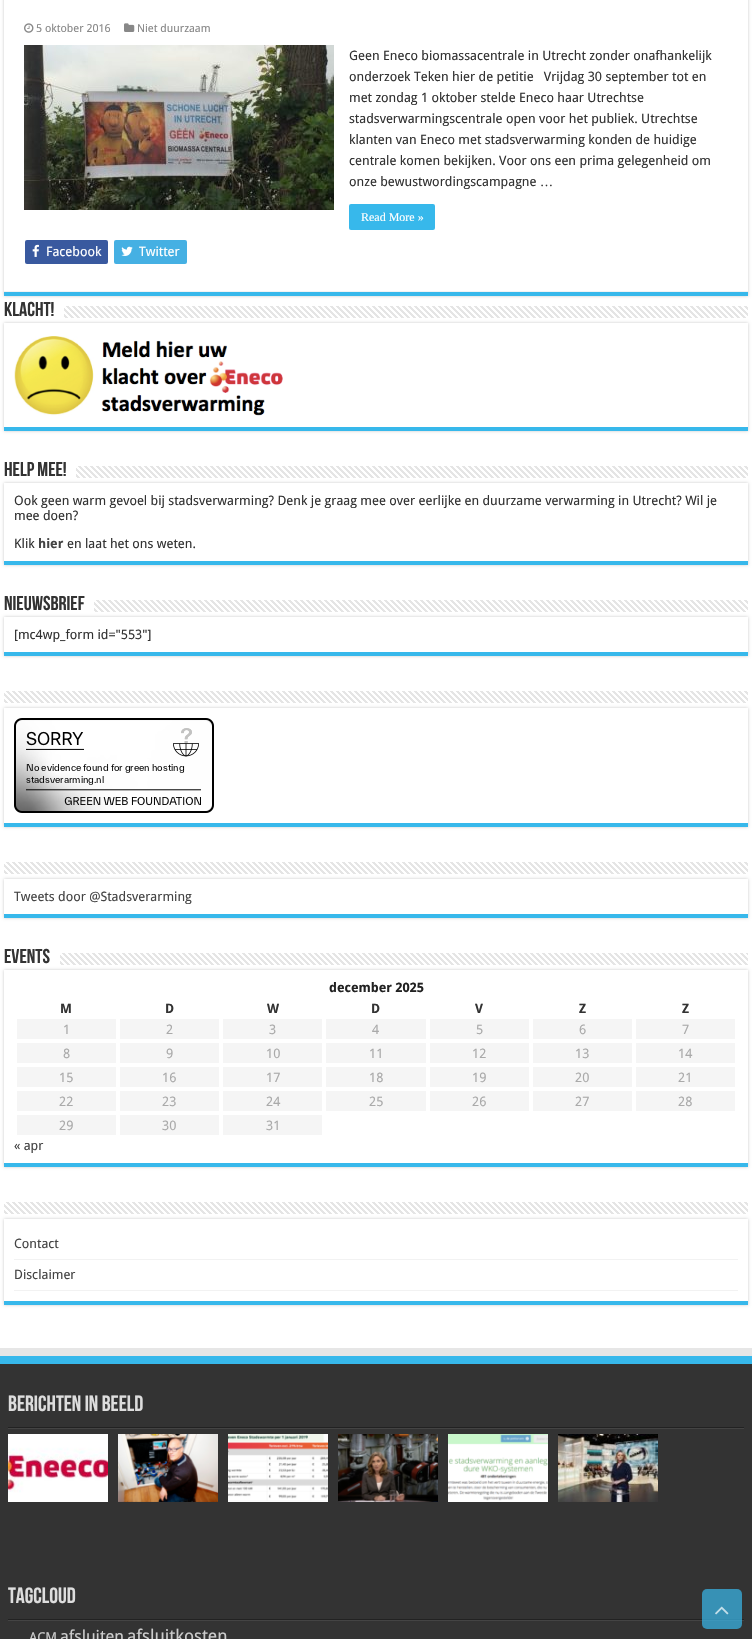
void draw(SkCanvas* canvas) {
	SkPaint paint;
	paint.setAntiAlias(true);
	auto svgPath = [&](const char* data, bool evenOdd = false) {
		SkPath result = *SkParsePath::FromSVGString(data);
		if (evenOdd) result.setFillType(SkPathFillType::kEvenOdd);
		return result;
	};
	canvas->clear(0xffffffff);
	canvas->save();
	canvas->clipPath(svgPath("M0 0H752V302H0ZM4-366H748V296H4Z", true), true);
	paint.setColor(0xffcacaca);
	paint.setMaskFilter(SkMaskFilter::MakeBlur(kNormal_SkBlurStyle, 1.5));
	canvas->drawRect(SkRect::MakeXYWH(4, -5, 744, 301), paint);
	paint.setMaskFilter(nullptr);
	canvas->restore();
	paint.setColor(0xff37b8eb);
	canvas->drawRect(SkRect::MakeXYWH(4, 292, 744, 4), paint);
	paint.setColor(0xfff2f2f2);
	canvas->drawRect(SkRect::MakeXYWH(4, 291, 744, 1), paint);
	canvas->drawImageRect(SkImages::DeferredFromEncodedData(SkData::MakeFromFileName("img1.png")), SkRect::MakeXYWH(24, 23, 10, 10), SkSamplingOptions());
	SkFont f1(fontMgr->matchFamilyStyle("Droid Sans", SkFontStyle::Normal()), 11);
	f1.setSubpixel(true);
	paint.setColor(0xff888888);
	canvas->drawString("5 oktober 2016", 36, 32, f1, paint);
	canvas->drawImageRect(SkImages::DeferredFromEncodedData(SkData::MakeFromFileName("img2.png")), SkRect::MakeXYWH(124, 23, 11, 9), SkSamplingOptions());
	canvas->drawString("Niet duurzaam", 137, 32, f1, paint);
	canvas->drawImageRect(SkImages::DeferredFromEncodedData(SkData::MakeFromFileName("img3.png")), SkRect::MakeXYWH(24, 45, 310, 165), SkSamplingOptions());
	SkFont f2(fontMgr->matchFamilyStyle("Droid Sans", SkFontStyle::Normal()), 13);
	f2.setSubpixel(true);
	paint.setColor(0xff333333);
	canvas->drawString("Geen Eneco biomassacentrale in Utrecht zonder onafhankelijk", 349, 60, f2, paint);
	canvas->drawString("onderzoek Teken hier de petitie   Vrijdag 30 september tot en", 349, 81, f2, paint);
	canvas->drawString("met zondag 1 oktober stelde Eneco haar Utrechtse", 349, 102, f2, paint);
	canvas->drawString("stadsverwarmingscentrale open voor het publiek. Utrechtse", 349, 123, f2, paint);
	canvas->drawString("klanten van Eneco met stadsverwarming konden de huidige", 349, 144, f2, paint);
	canvas->drawString("centrale komen bekijken. Voor ons een prima gelegenheid om", 349, 165, f2, paint);
	canvas->drawString("onze bewustwordingscampagne", 349, 186, f2, paint);
	SkFont f3(fontMgr->matchFamilyStyle("Liberation Serif", SkFontStyle::Normal()), 13);
	f3.setSubpixel(true);
	canvas->drawString("…", 540, 186, f3, paint);
	paint.setColor(0xff37b8eb);
	canvas->drawRoundRect(SkRect::MakeXYWH(349, 204, 86, 26), 2, 2, paint);
	SkFont f4(fontMgr->matchFamilyStyle("Liberation Serif", SkFontStyle::Normal()), 12);
	f4.setSubpixel(true);
	paint.setColor(0xffffffff);
	canvas->drawString("Read More »", 361, 221, f4, paint);
	paint.setColor(0xff39599f);
	canvas->drawRoundRect(SkRect::MakeXYWH(25, 240, 83, 24), 2, 2, paint);
	canvas->drawImageRect(SkImages::DeferredFromEncodedData(SkData::MakeFromFileName("img4.png")), SkRect::MakeXYWH(32, 244, 7, 13), SkSamplingOptions());
	paint.setColor(0xffffffff);
	canvas->drawString("Facebook", 46, 256, f2, paint);
	paint.setColor(0xff45b0e3);
	canvas->drawRoundRect(SkRect::MakeXYWH(114, 240, 73, 24), 2, 2, paint);
	canvas->drawImageRect(SkImages::DeferredFromEncodedData(SkData::MakeFromFileName("img5.png")), SkRect::MakeXYWH(121, 246, 12, 10), SkSamplingOptions());
	paint.setColor(0xffffffff);
	canvas->drawString("Twitter", 139, 256, f2, paint);
	SkFont f5(fontMgr->matchFamilyStyle("Bebas Neue", SkFontStyle::Bold()), 20);
	f5.setSubpixel(true);
	paint.setColor(0xff333333);
	canvas->drawString("KLACHT!", 4, 316, f5, paint);
	canvas->save();
	canvas->clipPath(svgPath("M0 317H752V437H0ZM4 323H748V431H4Z", true), true);
	paint.setColor(0xffcacaca);
	paint.setMaskFilter(SkMaskFilter::MakeBlur(kNormal_SkBlurStyle, 1.5));
	canvas->drawRect(SkRect::MakeXYWH(4, 323, 744, 108), paint);
	paint.setMaskFilter(nullptr);
	canvas->restore();
	canvas->drawImageRect(SkImages::DeferredFromEncodedData(SkData::MakeFromFileName("img6.png")), SkRect::MakeXYWH(64, 306, 684, 12), SkSamplingOptions());
	paint.setColor(0xff37b8eb);
	canvas->drawRect(SkRect::MakeXYWH(4, 427, 744, 4), paint);
	canvas->drawImageRect(SkImages::DeferredFromEncodedData(SkData::MakeFromFileName("img7.png")), SkRect::MakeXYWH(14, 336, 269, 80), SkSamplingOptions());
	paint.setColor(0xff333333);
	canvas->drawString("Help mee!", 4, 476, f5, paint);
	canvas->save();
	canvas->clipPath(svgPath("M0 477H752V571H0ZM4 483H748V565H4Z", true), true);
	paint.setColor(0xffcacaca);
	paint.setMaskFilter(SkMaskFilter::MakeBlur(kNormal_SkBlurStyle, 1.5));
	canvas->drawRect(SkRect::MakeXYWH(4, 483, 744, 82), paint);
	paint.setMaskFilter(nullptr);
	canvas->restore();
	canvas->drawImageRect(SkImages::DeferredFromEncodedData(SkData::MakeFromFileName("img8.png")), SkRect::MakeXYWH(76, 466, 672, 12), SkSamplingOptions());
	paint.setColor(0xff37b8eb);
	canvas->drawRect(SkRect::MakeXYWH(4, 561, 744, 4), paint);
	paint.setColor(0xff333333);
	canvas->drawString("Ook geen warm gevoel bij stadsverwarming? Denk je graag mee over eerlijke en duurzame verwarming in Utrecht? Wil je", 14, 505, f2, paint);
	canvas->drawString("mee doen?", 14, 520, f2, paint);
	canvas->drawString("Klik", 14, 548, f2, paint);
	SkFont f6(fontMgr->matchFamilyStyle("Droid Sans", SkFontStyle::Bold()), 13);
	f6.setSubpixel(true);
	paint.setColor(0xff444444);
	canvas->drawString("hier", 38, 548, f6, paint);
	paint.setColor(0xff333333);
	canvas->drawString("en laat het ons weten.", 67, 548, f2, paint);
	canvas->drawString("Nieuwsbrief", 4, 610, f5, paint);
	canvas->save();
	canvas->clipPath(svgPath("M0 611H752V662H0ZM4 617H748V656H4Z", true), true);
	paint.setColor(0xffcacaca);
	paint.setMaskFilter(SkMaskFilter::MakeBlur(kNormal_SkBlurStyle, 1.5));
	canvas->drawRect(SkRect::MakeXYWH(4, 617, 744, 39), paint);
	paint.setMaskFilter(nullptr);
	canvas->restore();
	canvas->drawImageRect(SkImages::DeferredFromEncodedData(SkData::MakeFromFileName("img9.png")), SkRect::MakeXYWH(94, 600, 654, 12), SkSamplingOptions());
	paint.setColor(0xff37b8eb);
	canvas->drawRect(SkRect::MakeXYWH(4, 652, 744, 4), paint);
	paint.setColor(0xff333333);
	canvas->drawString("[mc4wp_form id=\"553\"]", 14, 639, f2, paint);
	canvas->save();
	canvas->clipPath(svgPath("M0 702H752V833H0ZM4 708H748V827H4Z", true), true);
	paint.setColor(0xffcacaca);
	paint.setMaskFilter(SkMaskFilter::MakeBlur(kNormal_SkBlurStyle, 1.5));
	canvas->drawRect(SkRect::MakeXYWH(4, 708, 744, 119), paint);
	paint.setMaskFilter(nullptr);
	canvas->restore();
	canvas->drawImageRect(SkImages::DeferredFromEncodedData(SkData::MakeFromFileName("img10.png")), SkRect::MakeXYWH(4, 691, 744, 12), SkSamplingOptions());
	paint.setColor(0xff37b8eb);
	canvas->drawRect(SkRect::MakeXYWH(4, 823, 744, 4), paint);
	canvas->drawImageRect(SkImages::DeferredFromEncodedData(SkData::MakeFromFileName("img11.png")), SkRect::MakeXYWH(14, 718, 200, 95), SkSamplingOptions());
	canvas->save();
	canvas->clipPath(svgPath("M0 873H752V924H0ZM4 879H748V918H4Z", true), true);
	paint.setColor(0xffcacaca);
	paint.setMaskFilter(SkMaskFilter::MakeBlur(kNormal_SkBlurStyle, 1.5));
	canvas->drawRect(SkRect::MakeXYWH(4, 879, 744, 39), paint);
	paint.setMaskFilter(nullptr);
	canvas->restore();
	canvas->drawImageRect(SkImages::DeferredFromEncodedData(SkData::MakeFromFileName("img10.png")), SkRect::MakeXYWH(4, 862, 744, 12), SkSamplingOptions());
	paint.setColor(0xff37b8eb);
	canvas->drawRect(SkRect::MakeXYWH(4, 914, 744, 4), paint);
	paint.setColor(0xff444444);
	canvas->drawString("Tweets door @Stadsverarming", 14, 901, f2, paint);
	paint.setColor(0xff333333);
	canvas->drawString("Events", 4, 963, f5, paint);
	canvas->save();
	canvas->clipPath(svgPath("M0 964H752V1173H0ZM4 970H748V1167H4Z", true), true);
	paint.setColor(0xffcacaca);
	paint.setMaskFilter(SkMaskFilter::MakeBlur(kNormal_SkBlurStyle, 1.5));
	canvas->drawRect(SkRect::MakeXYWH(4, 970, 744, 197), paint);
	paint.setMaskFilter(nullptr);
	canvas->restore();
	canvas->drawImageRect(SkImages::DeferredFromEncodedData(SkData::MakeFromFileName("img12.png")), SkRect::MakeXYWH(60, 953, 688, 12), SkSamplingOptions());
	paint.setColor(0xff37b8eb);
	canvas->drawRect(SkRect::MakeXYWH(4, 1163, 744, 4), paint);
	paint.setColor(0xff222222);
	canvas->drawString("december 2025", 329, 992, f6, paint);
	paint.setColor(0xff333333);
	canvas->drawString("M", 60, 1013, f6, paint);
	canvas->drawString("D", 165, 1013, f6, paint);
	canvas->drawString("W", 267, 1013, f6, paint);
	canvas->drawString("D", 371, 1013, f6, paint);
	canvas->drawString("V", 475, 1013, f6, paint);
	canvas->drawString("Z", 579, 1013, f6, paint);
	canvas->drawString("Z", 682, 1013, f6, paint);
	paint.setColor(0xfff5f5f5);
	canvas->drawRect(SkRect::MakeXYWH(17, 1019, 99, 20), paint);
	paint.setColor(0xffaaaaaa);
	canvas->drawString("1", 63, 1034, f2, paint);
	paint.setColor(0xfff5f5f5);
	canvas->drawRect(SkRect::MakeXYWH(120, 1019, 99, 20), paint);
	paint.setColor(0xffaaaaaa);
	canvas->drawString("2", 166, 1034, f2, paint);
	paint.setColor(0xfff5f5f5);
	canvas->drawRect(SkRect::MakeXYWH(223, 1019, 99, 20), paint);
	paint.setColor(0xffaaaaaa);
	canvas->drawString("3", 269, 1034, f2, paint);
	paint.setColor(0xfff5f5f5);
	canvas->drawRect(SkRect::MakeXYWH(326, 1019, 100, 20), paint);
	paint.setColor(0xffaaaaaa);
	canvas->drawString("4", 372, 1034, f2, paint);
	paint.setColor(0xfff5f5f5);
	canvas->drawRect(SkRect::MakeXYWH(430, 1019, 99, 20), paint);
	paint.setColor(0xffaaaaaa);
	canvas->drawString("5", 476, 1034, f2, paint);
	paint.setColor(0xfff5f5f5);
	canvas->drawRect(SkRect::MakeXYWH(533, 1019, 99, 20), paint);
	paint.setColor(0xffaaaaaa);
	canvas->drawString("6", 579, 1034, f2, paint);
	paint.setColor(0xfff5f5f5);
	canvas->drawRect(SkRect::MakeXYWH(636, 1019, 99, 20), paint);
	paint.setColor(0xffaaaaaa);
	canvas->drawString("7", 682, 1034, f2, paint);
	paint.setColor(0xfff5f5f5);
	canvas->drawRect(SkRect::MakeXYWH(17, 1043, 99, 20), paint);
	paint.setColor(0xffaaaaaa);
	canvas->drawString("8", 63, 1058, f2, paint);
	paint.setColor(0xfff5f5f5);
	canvas->drawRect(SkRect::MakeXYWH(120, 1043, 99, 20), paint);
	paint.setColor(0xffaaaaaa);
	canvas->drawString("9", 166, 1058, f2, paint);
	paint.setColor(0xfff5f5f5);
	canvas->drawRect(SkRect::MakeXYWH(223, 1043, 99, 20), paint);
	paint.setColor(0xffaaaaaa);
	canvas->drawString("10", 266, 1058, f2, paint);
	paint.setColor(0xfff5f5f5);
	canvas->drawRect(SkRect::MakeXYWH(326, 1043, 100, 20), paint);
	paint.setColor(0xffaaaaaa);
	canvas->drawString("11", 369, 1058, f2, paint);
	paint.setColor(0xfff5f5f5);
	canvas->drawRect(SkRect::MakeXYWH(430, 1043, 99, 20), paint);
	paint.setColor(0xffaaaaaa);
	canvas->drawString("12", 472, 1058, f2, paint);
	paint.setColor(0xfff5f5f5);
	canvas->drawRect(SkRect::MakeXYWH(533, 1043, 99, 20), paint);
	paint.setColor(0xffaaaaaa);
	canvas->drawString("13", 575, 1058, f2, paint);
	paint.setColor(0xfff5f5f5);
	canvas->drawRect(SkRect::MakeXYWH(636, 1043, 99, 20), paint);
	paint.setColor(0xffaaaaaa);
	canvas->drawString("14", 678, 1058, f2, paint);
	paint.setColor(0xfff5f5f5);
	canvas->drawRect(SkRect::MakeXYWH(17, 1067, 99, 20), paint);
	paint.setColor(0xffaaaaaa);
	canvas->drawString("15", 59, 1082, f2, paint);
	paint.setColor(0xfff5f5f5);
	canvas->drawRect(SkRect::MakeXYWH(120, 1067, 99, 20), paint);
	paint.setColor(0xffaaaaaa);
	canvas->drawString("16", 162, 1082, f2, paint);
	paint.setColor(0xfff5f5f5);
	canvas->drawRect(SkRect::MakeXYWH(223, 1067, 99, 20), paint);
	paint.setColor(0xffaaaaaa);
	canvas->drawString("17", 266, 1082, f2, paint);
	paint.setColor(0xfff5f5f5);
	canvas->drawRect(SkRect::MakeXYWH(326, 1067, 100, 20), paint);
	paint.setColor(0xffaaaaaa);
	canvas->drawString("18", 369, 1082, f2, paint);
	paint.setColor(0xfff5f5f5);
	canvas->drawRect(SkRect::MakeXYWH(430, 1067, 99, 20), paint);
	paint.setColor(0xffaaaaaa);
	canvas->drawString("19", 472, 1082, f2, paint);
	paint.setColor(0xfff5f5f5);
	canvas->drawRect(SkRect::MakeXYWH(533, 1067, 99, 20), paint);
	paint.setColor(0xffaaaaaa);
	canvas->drawString("20", 575, 1082, f2, paint);
	paint.setColor(0xfff5f5f5);
	canvas->drawRect(SkRect::MakeXYWH(636, 1067, 99, 20), paint);
	paint.setColor(0xffaaaaaa);
	canvas->drawString("21", 678, 1082, f2, paint);
	paint.setColor(0xfff5f5f5);
	canvas->drawRect(SkRect::MakeXYWH(17, 1091, 99, 20), paint);
	paint.setColor(0xffaaaaaa);
	canvas->drawString("22", 59, 1106, f2, paint);
	paint.setColor(0xfff5f5f5);
	canvas->drawRect(SkRect::MakeXYWH(120, 1091, 99, 20), paint);
	paint.setColor(0xffaaaaaa);
	canvas->drawString("23", 162, 1106, f2, paint);
	paint.setColor(0xfff5f5f5);
	canvas->drawRect(SkRect::MakeXYWH(223, 1091, 99, 20), paint);
	paint.setColor(0xffaaaaaa);
	canvas->drawString("24", 266, 1106, f2, paint);
	paint.setColor(0xfff5f5f5);
	canvas->drawRect(SkRect::MakeXYWH(326, 1091, 100, 20), paint);
	paint.setColor(0xffaaaaaa);
	canvas->drawString("25", 369, 1106, f2, paint);
	paint.setColor(0xfff5f5f5);
	canvas->drawRect(SkRect::MakeXYWH(430, 1091, 99, 20), paint);
	paint.setColor(0xffaaaaaa);
	canvas->drawString("26", 472, 1106, f2, paint);
	paint.setColor(0xfff5f5f5);
	canvas->drawRect(SkRect::MakeXYWH(533, 1091, 99, 20), paint);
	paint.setColor(0xffaaaaaa);
	canvas->drawString("27", 575, 1106, f2, paint);
	paint.setColor(0xfff5f5f5);
	canvas->drawRect(SkRect::MakeXYWH(636, 1091, 99, 20), paint);
	paint.setColor(0xffaaaaaa);
	canvas->drawString("28", 678, 1106, f2, paint);
	paint.setColor(0xfff5f5f5);
	canvas->drawRect(SkRect::MakeXYWH(17, 1115, 99, 20), paint);
	paint.setColor(0xffaaaaaa);
	canvas->drawString("29", 59, 1130, f2, paint);
	paint.setColor(0xfff5f5f5);
	canvas->drawRect(SkRect::MakeXYWH(120, 1115, 99, 20), paint);
	paint.setColor(0xffaaaaaa);
	canvas->drawString("30", 162, 1130, f2, paint);
	paint.setColor(0xfff5f5f5);
	canvas->drawRect(SkRect::MakeXYWH(223, 1115, 99, 20), paint);
	paint.setColor(0xffaaaaaa);
	canvas->drawString("31", 266, 1130, f2, paint);
	paint.setColor(0xff444444);
	canvas->drawString("« apr", 14, 1150, f2, paint);
	canvas->save();
	canvas->clipPath(svgPath("M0 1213H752V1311H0ZM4 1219H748V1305H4Z", true), true);
	paint.setColor(0xffcacaca);
	paint.setMaskFilter(SkMaskFilter::MakeBlur(kNormal_SkBlurStyle, 1.5));
	canvas->drawRect(SkRect::MakeXYWH(4, 1219, 744, 86), paint);
	paint.setMaskFilter(nullptr);
	canvas->restore();
	canvas->drawImageRect(SkImages::DeferredFromEncodedData(SkData::MakeFromFileName("img10.png")), SkRect::MakeXYWH(4, 1202, 744, 12), SkSamplingOptions());
	paint.setColor(0xff37b8eb);
	canvas->drawRect(SkRect::MakeXYWH(4, 1301, 744, 4), paint);
	paint.setColor(0xfff2f2f2);
	canvas->drawRect(SkRect::MakeXYWH(14, 1259, 724, 1), paint);
	paint.setColor(0xff444444);
	canvas->drawString("Contact", 14, 1248, f2, paint);
	paint.setColor(0xfff2f2f2);
	canvas->drawRect(SkRect::MakeXYWH(14, 1290, 724, 1), paint);
	paint.setColor(0xff444444);
	canvas->drawString("Disclaimer", 14, 1279, f2, paint);
	paint.setColor(0xffe6e6e6);
	canvas->drawRect(SkRect::MakeXYWH(0, 1348, 752, 8), paint);
	paint.setColor(0xff333333);
	canvas->drawRect(SkRect::MakeXYWH(0, 1364, 752, 275), paint);
	paint.setColor(0xff37b8eb);
	canvas->drawRect(SkRect::MakeXYWH(0, 1356, 752, 8), paint);
	paint.setColor(0xff222222);
	canvas->drawRect(SkRect::MakeXYWH(8, 1427, 736, 1), paint);
	SkFont f7(fontMgr->matchFamilyStyle("Bebas Neue", SkFontStyle::Bold()), 22);
	f7.setSubpixel(true);
	paint.setColor(0xffdddddd);
	canvas->drawString("Berichten in beeld", 8, 1411, f7, paint);
	paint.setColor(0xff444444);
	canvas->drawRect(SkRect::MakeXYWH(8, 1428, 736, 1), paint);
	canvas->drawImageRect(SkImages::DeferredFromEncodedData(SkData::MakeFromFileName("img13.png")), SkRect::MakeXYWH(8, 1434, 100, 68), SkSamplingOptions());
	canvas->drawImageRect(SkImages::DeferredFromEncodedData(SkData::MakeFromFileName("img14.png")), SkRect::MakeXYWH(118, 1434, 100, 68), SkSamplingOptions());
	canvas->drawImageRect(SkImages::DeferredFromEncodedData(SkData::MakeFromFileName("img15.png")), SkRect::MakeXYWH(228, 1434, 100, 68), SkSamplingOptions());
	canvas->drawImageRect(SkImages::DeferredFromEncodedData(SkData::MakeFromFileName("img16.png")), SkRect::MakeXYWH(338, 1434, 100, 68), SkSamplingOptions());
	canvas->drawImageRect(SkImages::DeferredFromEncodedData(SkData::MakeFromFileName("img17.png")), SkRect::MakeXYWH(448, 1434, 100, 68), SkSamplingOptions());
	canvas->drawImageRect(SkImages::DeferredFromEncodedData(SkData::MakeFromFileName("img18.png")), SkRect::MakeXYWH(558, 1434, 100, 68), SkSamplingOptions());
	paint.setColor(0xff222222);
	canvas->drawRect(SkRect::MakeXYWH(8, 1619, 736, 1), paint);
	paint.setColor(0xffdddddd);
	canvas->drawString("Tagcloud", 8, 1603, f7, paint);
	paint.setColor(0xff444444);
	canvas->drawRect(SkRect::MakeXYWH(8, 1620, 736, 1), paint);
	SkFont f8(fontMgr->matchFamilyStyle("Droid Sans", SkFontStyle::Normal()), 13.5);
	f8.setSubpixel(true);
	paint.setColor(0xffcccccc);
	canvas->drawString("ACM", 29, 1642, f8, paint);
	SkFont f9(fontMgr->matchFamilyStyle("Droid Sans", SkFontStyle::Normal()), 16.5);
	f9.setSubpixel(true);
	canvas->drawString("afsluiten", 60, 1642, f9, paint);
	SkFont f10(fontMgr->matchFamilyStyle("Droid Sans", SkFontStyle::Normal()), 17.5);
	f10.setSubpixel(true);
	canvas->drawString("afsluitkosten", 127, 1642, f10, paint);
	paint.setColor(0xb337b8eb);
	canvas->drawRoundRect(SkRect::MakeXYWH(702, 1589, 40, 40), 5, 5, paint);
	canvas->drawImageRect(SkImages::DeferredFromEncodedData(SkData::MakeFromFileName("img19.png")), SkRect::MakeXYWH(715, 1606, 14, 9), SkSamplingOptions());
}
